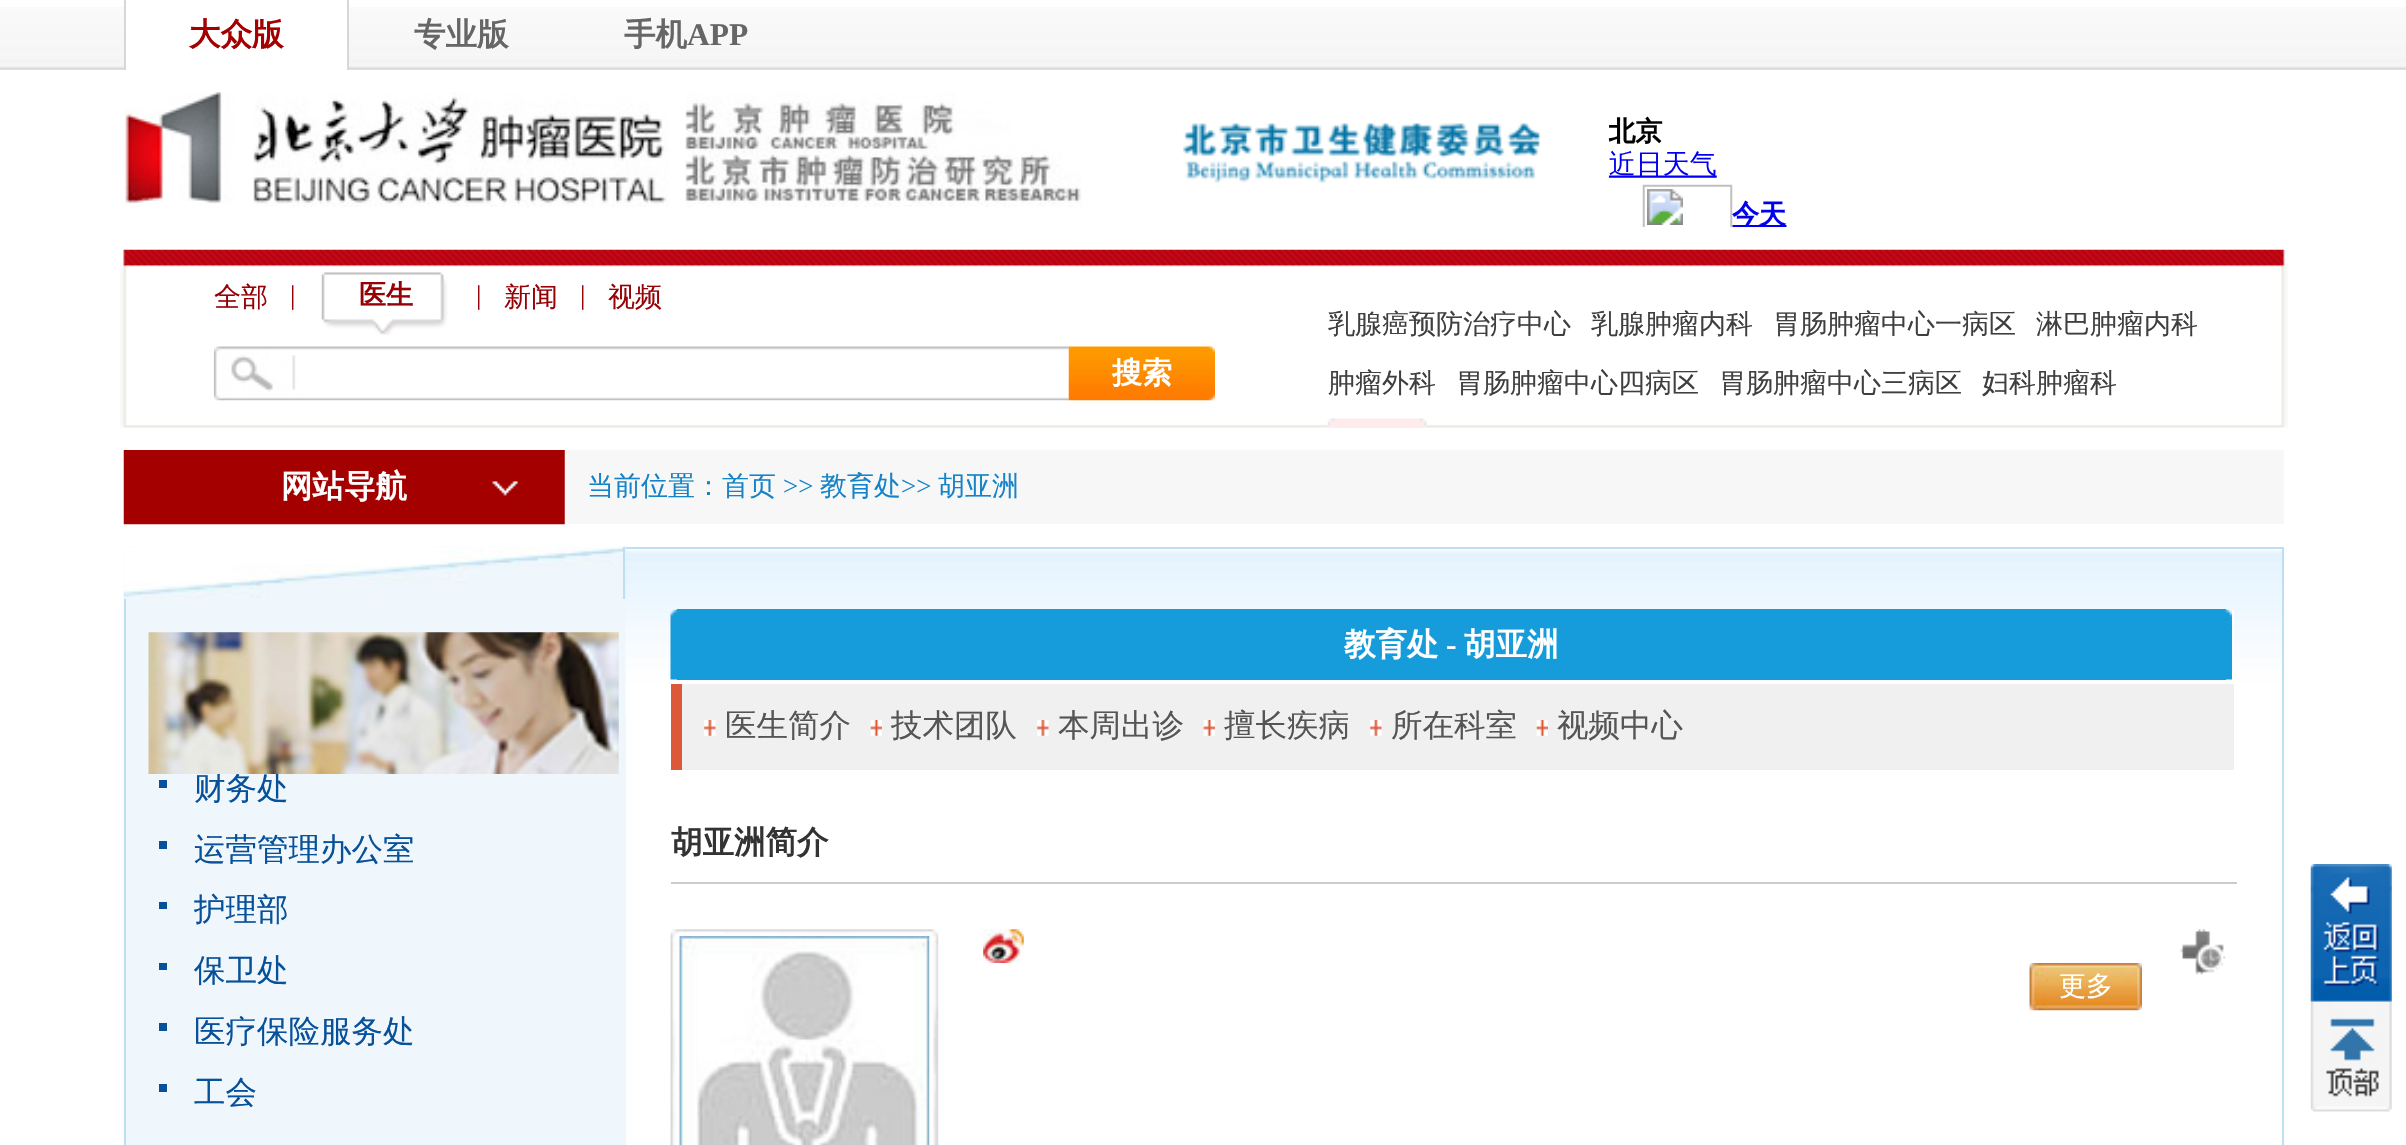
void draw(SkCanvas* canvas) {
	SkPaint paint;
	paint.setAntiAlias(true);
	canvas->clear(0xffffffff);
	canvas->drawImageRect(SkImages::DeferredFromEncodedData(SkData::MakeFromFileName("img1.png")), SkRect::MakeXYWH(0, 7, 2406, 63), SkSamplingOptions());
	paint.setColor(0xffffffff);
	canvas->drawRect(SkRect::MakeXYWH(126, 7, 221, 63), paint);
	paint.setColor(0xffd7d7d7);
	canvas->drawRect(SkRect::MakeXYWH(347, 0, 2, 70), paint);
	canvas->drawRect(SkRect::MakeXYWH(124, 0, 2, 70), paint);
	SkFont f1(fontMgr->matchFamilyStyle("WenQuanYi Zen Hei", SkFontStyle::Bold()), 31.5);
	f1.setSubpixel(true);
	paint.setColor(0xffa40000);
	canvas->drawString("大众版", 189, 45, f1, paint);
	paint.setColor(0xff666666);
	canvas->drawString("专业版", 414, 45, f1, paint);
	canvas->drawString("手机", 624, 45, f1, paint);
	SkFont f2(fontMgr->matchFamilyStyle("Liberation Serif", SkFontStyle::Bold()), 31.5);
	f2.setSubpixel(true);
	canvas->drawString("APP", 687, 45, f2, paint);
	canvas->drawImageRect(SkImages::DeferredFromEncodedData(SkData::MakeFromFileName("img2.png")), SkRect::MakeXYWH(124, 92, 958, 115), SkSamplingOptions());
	canvas->drawImageRect(SkImages::DeferredFromEncodedData(SkData::MakeFromFileName("img3.png")), SkRect::MakeXYWH(1183, 123, 357, 60), SkSamplingOptions());
	canvas->drawImageRect(SkImages::DeferredFromEncodedData(SkData::MakeFromFileName("img4.png")), SkRect::MakeXYWH(1608, 116, 179, 112), SkSamplingOptions());
	canvas->drawImageRect(SkImages::DeferredFromEncodedData(SkData::MakeFromFileName("img5.png")), SkRect::MakeXYWH(120, 249, 2168, 179), SkSamplingOptions());
	SkFont f3(fontMgr->matchFamilyStyle("WenQuanYi Zen Hei", SkFontStyle(500, SkFontStyle::kNormal_Width, SkFontStyle::kUpright_Slant)), 27);
	f3.setSubpixel(true);
	paint.setColor(0xff950206);
	canvas->drawString("全部", 214, 306, f3, paint);
	SkFont f4(fontMgr->matchFamilyStyle("Liberation Serif", SkFontStyle::Normal()), 27);
	f4.setSubpixel(true);
	canvas->drawString("|", 290, 304, f4, paint);
	canvas->drawImageRect(SkImages::DeferredFromEncodedData(SkData::MakeFromFileName("img6.png")), SkRect::MakeXYWH(321, 272, 127, 63), SkSamplingOptions());
	SkFont f5(fontMgr->matchFamilyStyle("WenQuanYi Zen Hei", SkFontStyle::Bold()), 27);
	f5.setSubpixel(true);
	canvas->drawString("医生", 359, 304, f5, paint);
	canvas->drawString("|", 476, 304, f4, paint);
	canvas->drawString("新闻", 504, 306, f3, paint);
	canvas->drawString("|", 580, 304, f4, paint);
	canvas->drawString("视频", 608, 306, f3, paint);
	canvas->drawImageRect(SkImages::DeferredFromEncodedData(SkData::MakeFromFileName("img7.png")), SkRect::MakeXYWH(213, 346, 856, 55), SkSamplingOptions());
	canvas->drawImageRect(SkImages::DeferredFromEncodedData(SkData::MakeFromFileName("img8.png")), SkRect::MakeXYWH(1068, 346, 147, 55), SkSamplingOptions());
	SkFont f6(fontMgr->matchFamilyStyle("WenQuanYi Zen Hei", SkFontStyle::Bold()), 30);
	f6.setSubpixel(true);
	paint.setColor(0xffffffff);
	canvas->drawString("搜索", 1112, 383, f6, paint);
	paint.setColor(0xff3f3f3f);
	canvas->drawString("乳腺癌预防治疗中心", 1328, 333, f3, paint);
	canvas->drawString("乳腺肿瘤内科", 1591, 333, f3, paint);
	canvas->drawString("胃肠肿瘤中心一病区", 1773, 333, f3, paint);
	canvas->drawString("淋巴肿瘤内科", 2036, 333, f3, paint);
	canvas->drawString("肿瘤外科", 1328, 392, f3, paint);
	canvas->drawString("胃肠肿瘤中心四病区", 1456, 392, f3, paint);
	canvas->drawString("胃肠肿瘤中心三病区", 1719, 392, f3, paint);
	canvas->drawString("妇科肿瘤科", 1982, 392, f3, paint);
	canvas->drawImageRect(SkImages::DeferredFromEncodedData(SkData::MakeFromFileName("img9.png")), SkRect::MakeXYWH(1327, 418, 100, 10), SkSamplingOptions());
	paint.setColor(0xfff7f7f7);
	canvas->drawRect(SkRect::MakeXYWH(564, 450, 1720, 74), paint);
	canvas->drawImageRect(SkImages::DeferredFromEncodedData(SkData::MakeFromFileName("img10.png")), SkRect::MakeXYWH(123, 450, 442, 75), SkSamplingOptions());
	paint.setColor(0xffffffff);
	canvas->drawString("网站导航", 281, 497, f1, paint);
	paint.setColor(0xff1483c8);
	canvas->drawString("当前位置：首页", 587, 495, f3, paint);
	canvas->drawString(">>", 783, 495, f4, paint);
	canvas->drawString("教育处", 820, 495, f3, paint);
	canvas->drawString(">>", 901, 495, f4, paint);
	canvas->drawString("胡亚洲", 938, 495, f3, paint);
	canvas->drawImageRect(SkImages::DeferredFromEncodedData(SkData::MakeFromFileName("img11.png")), SkRect::MakeXYWH(123, 546, 506, 599), SkSamplingOptions());
	canvas->drawImageRect(SkImages::DeferredFromEncodedData(SkData::MakeFromFileName("img12.png")), SkRect::MakeXYWH(123, 547, 503, 52), SkSamplingOptions());
	paint.setColor(0xffbce0f1);
	canvas->drawRect(SkRect::MakeXYWH(623, 547, 2, 52), paint);
	paint.setColor(0xffeff6fc);
	canvas->drawRect(SkRect::MakeXYWH(126, 599, 500, 546), paint);
	paint.setColor(0xffbce0f1);
	canvas->drawRect(SkRect::MakeXYWH(124, 599, 2, 546), paint);
	canvas->drawImageRect(SkImages::DeferredFromEncodedData(SkData::MakeFromFileName("img13.png")), SkRect::MakeXYWH(148, 632, 471, 142), SkSamplingOptions());
	paint.setColor(0xff07519a);
	canvas->drawRect(SkRect::MakeXYWH(159, 780, 8, 8), paint);
	canvas->save();
	canvas->clipRect(SkRect::MakeXYWH(126, 774, 500, 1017));
	SkFont f7(fontMgr->matchFamilyStyle("WenQuanYi Zen Hei", SkFontStyle(500, SkFontStyle::kNormal_Width, SkFontStyle::kUpright_Slant)), 31.5);
	f7.setSubpixel(true);
	canvas->drawString("财务处", 194, 799, f7, paint);
	canvas->restore();
	canvas->drawRect(SkRect::MakeXYWH(159, 841, 8, 8), paint);
	canvas->drawString("运营管理办公室", 194, 860, f7, paint);
	canvas->drawRect(SkRect::MakeXYWH(159, 902, 8, 7), paint);
	canvas->drawString("护理部", 194, 920, f7, paint);
	canvas->drawRect(SkRect::MakeXYWH(159, 963, 8, 7), paint);
	canvas->drawString("保卫处", 194, 981, f7, paint);
	canvas->drawRect(SkRect::MakeXYWH(159, 1023, 8, 8), paint);
	canvas->drawString("医疗保险服务处", 194, 1042, f7, paint);
	canvas->drawRect(SkRect::MakeXYWH(159, 1084, 8, 8), paint);
	canvas->drawString("工会", 194, 1103, f7, paint);
	paint.setColor(0xffffffff);
	canvas->drawRect(SkRect::MakeXYWH(626, 715, 3, 430), paint);
	canvas->drawImageRect(SkImages::DeferredFromEncodedData(SkData::MakeFromFileName("img14.png")), SkRect::MakeXYWH(625, 549, 1657, 167), SkSamplingOptions());
	paint.setColor(0xffbce0f1);
	canvas->drawRect(SkRect::MakeXYWH(626, 547, 1658, 2), paint);
	canvas->drawRect(SkRect::MakeXYWH(2282, 547, 2, 598), paint);
	paint.setColor(0xffffffff);
	canvas->drawRect(SkRect::MakeXYWH(671, 610, 1563, 59), paint);
	canvas->drawImageRect(SkImages::DeferredFromEncodedData(SkData::MakeFromFileName("img15.png")), SkRect::MakeXYWH(670, 609, 7, 71), SkSamplingOptions());
	paint.setColor(0xff169cda);
	canvas->drawRect(SkRect::MakeXYWH(677, 609, 1549, 71), paint);
	paint.setColor(0xffffffff);
	canvas->drawString("教育处", 1344, 655, f1, paint);
	canvas->drawString("-", 1446, 655, f2, paint);
	canvas->drawString("胡亚洲", 1464, 655, f1, paint);
	canvas->drawImageRect(SkImages::DeferredFromEncodedData(SkData::MakeFromFileName("img16.png")), SkRect::MakeXYWH(2225, 609, 7, 71), SkSamplingOptions());
	paint.setColor(0xfff0f0f0);
	canvas->drawRect(SkRect::MakeXYWH(682, 684, 1552, 86), paint);
	paint.setColor(0xffdd5839);
	canvas->drawRect(SkRect::MakeXYWH(671, 684, 11, 86), paint);
	canvas->drawImageRect(SkImages::DeferredFromEncodedData(SkData::MakeFromFileName("img17.png")), SkRect::MakeXYWH(704, 720, 12, 16), SkSamplingOptions());
	paint.setColor(0xff555555);
	canvas->drawString("医生简介", 725, 736, f7, paint);
	canvas->drawImageRect(SkImages::DeferredFromEncodedData(SkData::MakeFromFileName("img18.png")), SkRect::MakeXYWH(870, 720, 12, 16), SkSamplingOptions());
	canvas->drawString("技术团队", 891, 736, f7, paint);
	canvas->drawImageRect(SkImages::DeferredFromEncodedData(SkData::MakeFromFileName("img19.png")), SkRect::MakeXYWH(1037, 720, 12, 16), SkSamplingOptions());
	canvas->drawString("本周出诊", 1058, 736, f7, paint);
	canvas->drawImageRect(SkImages::DeferredFromEncodedData(SkData::MakeFromFileName("img18.png")), SkRect::MakeXYWH(1203, 720, 12, 16), SkSamplingOptions());
	canvas->drawString("擅长疾病", 1224, 736, f7, paint);
	canvas->drawImageRect(SkImages::DeferredFromEncodedData(SkData::MakeFromFileName("img19.png")), SkRect::MakeXYWH(1370, 720, 12, 16), SkSamplingOptions());
	canvas->drawString("所在科室", 1391, 736, f7, paint);
	canvas->drawImageRect(SkImages::DeferredFromEncodedData(SkData::MakeFromFileName("img18.png")), SkRect::MakeXYWH(1536, 720, 12, 16), SkSamplingOptions());
	canvas->drawString("视频中心", 1557, 736, f7, paint);
	paint.setColor(0xffcccccc);
	canvas->drawRect(SkRect::MakeXYWH(671, 882, 1566, 2), paint);
	paint.setColor(0xff333333);
	canvas->drawString("胡亚洲简介", 671, 853, f1, paint);
	canvas->drawImageRect(SkImages::DeferredFromEncodedData(SkData::MakeFromFileName("img20.png")), SkRect::MakeXYWH(670, 929, 269, 216), SkSamplingOptions());
	canvas->drawImageRect(SkImages::DeferredFromEncodedData(SkData::MakeFromFileName("img21.png")), SkRect::MakeXYWH(679, 936, 251, 209), SkSamplingOptions());
	canvas->drawImageRect(SkImages::DeferredFromEncodedData(SkData::MakeFromFileName("img22.png")), SkRect::MakeXYWH(983, 929, 41, 34), SkSamplingOptions());
	canvas->drawImageRect(SkImages::DeferredFromEncodedData(SkData::MakeFromFileName("img23.png")), SkRect::MakeXYWH(2180, 929, 46, 46), SkSamplingOptions());
	canvas->drawImageRect(SkImages::DeferredFromEncodedData(SkData::MakeFromFileName("img24.png")), SkRect::MakeXYWH(2029, 963, 113, 48), SkSamplingOptions());
	paint.setColor(0xffffffff);
	canvas->drawString("更多", 2059, 995, f3, paint);
	canvas->drawImageRect(SkImages::DeferredFromEncodedData(SkData::MakeFromFileName("img25.png")), SkRect::MakeXYWH(2310, 864, 82, 248), SkSamplingOptions());
}
